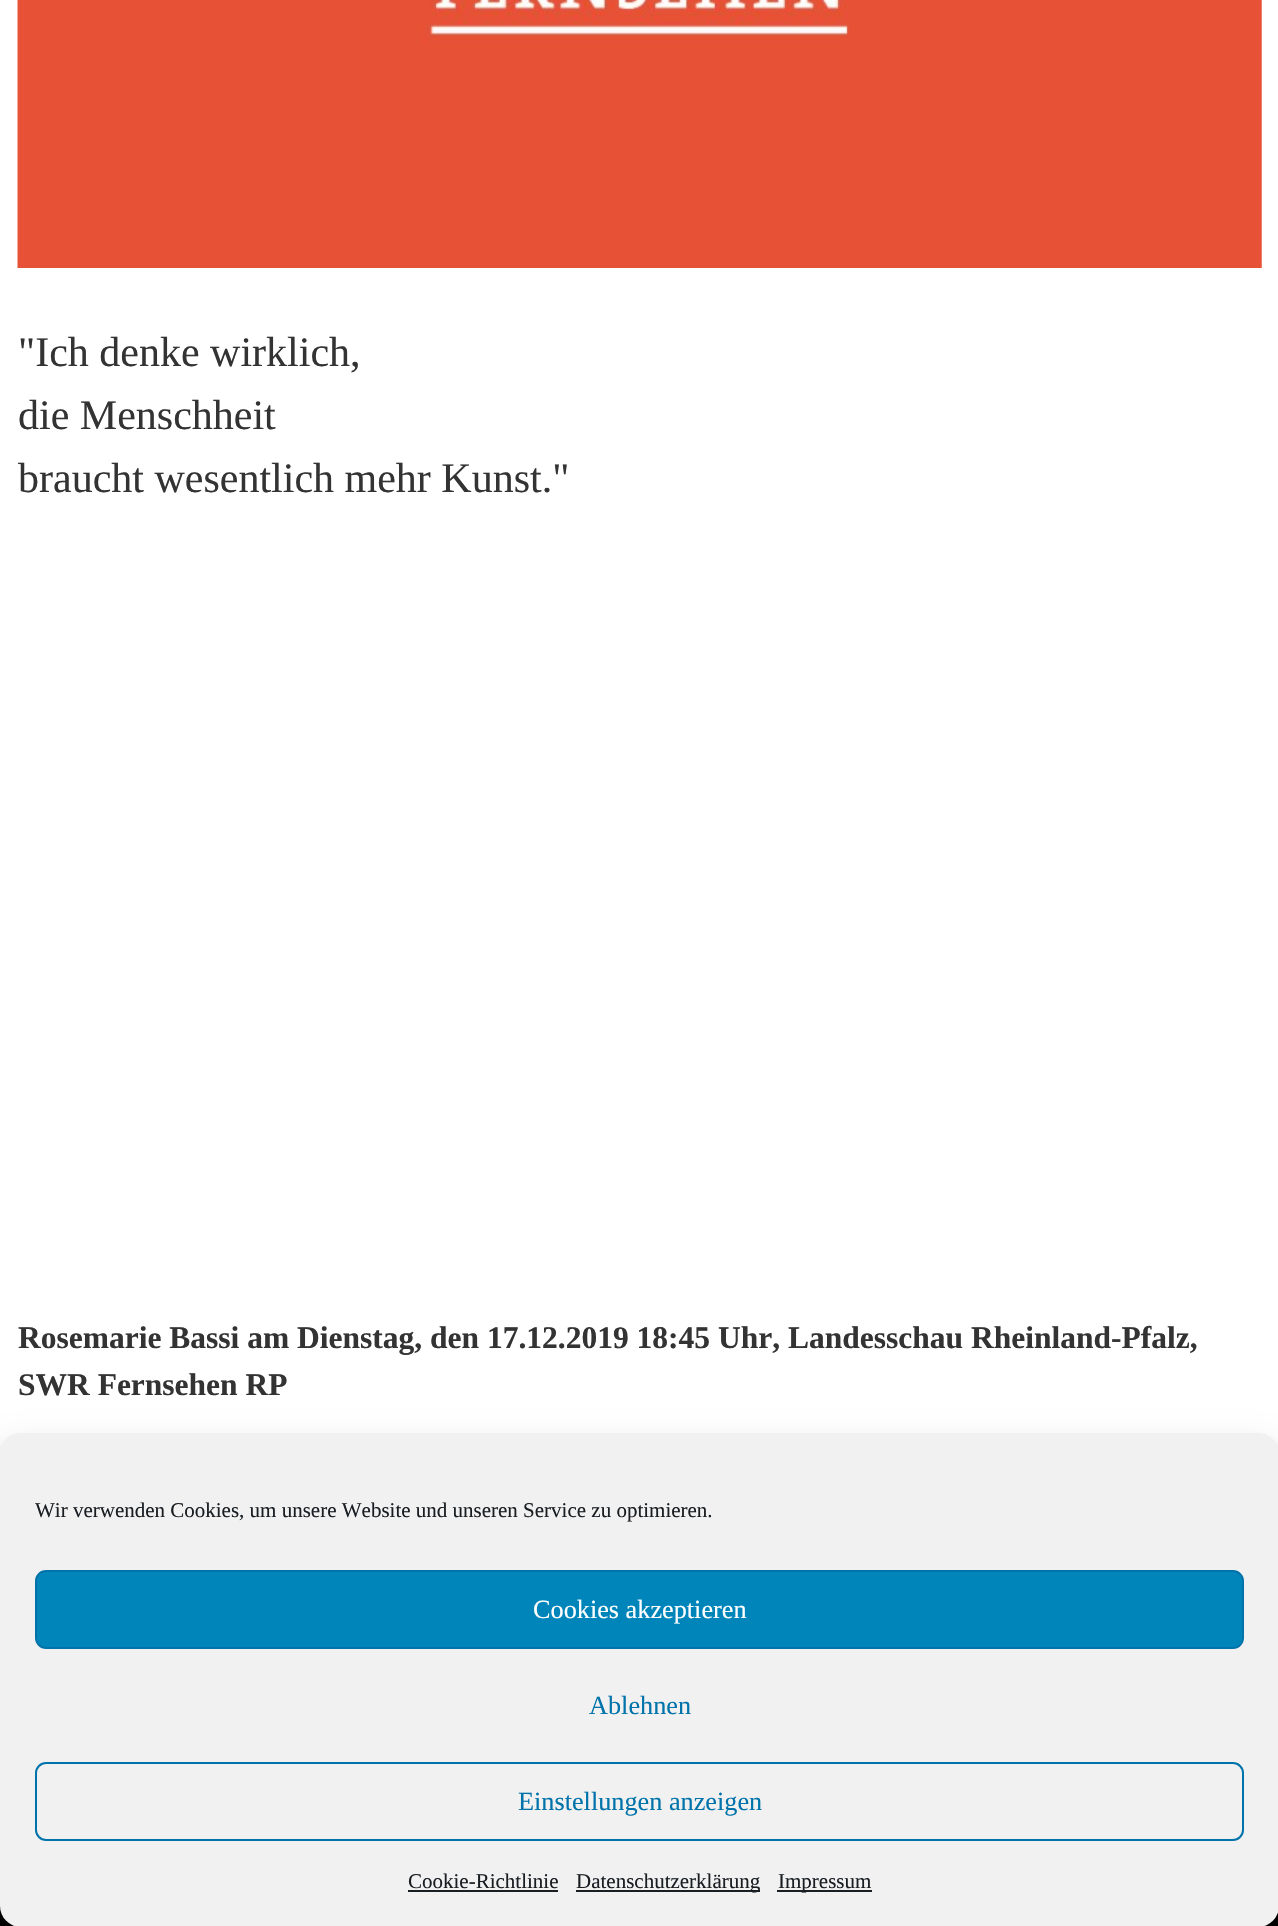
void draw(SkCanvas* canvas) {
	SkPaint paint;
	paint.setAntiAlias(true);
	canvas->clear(0xffffffff);
	canvas->drawImageRect(SkImages::DeferredFromEncodedData(SkData::MakeFromFileName("img1.png")), SkRect::MakeXYWH(17, 0, 1245, 268), SkSamplingOptions());
	SkFont f1(fontMgr->matchFamilyStyle("Tinos", SkFontStyle::Normal()), 42);
	f1.setSubpixel(true);
	paint.setColor(0xff333333);
	canvas->drawString("\"Ich denke wirklich,", 18, 366, f1, paint);
	canvas->drawString("die Menschheit", 18, 429, f1, paint);
	canvas->drawString("braucht wesentlich mehr Kunst.\"", 18, 492, f1, paint);
	SkFont f2(fontMgr->matchFamilyStyle("Tinos", SkFontStyle::Bold()), 31.5);
	f2.setSubpixel(true);
	canvas->drawString("Rosemarie Bassi am Dienstag, den 17.12.2019 18:45 Uhr, Landesschau Rheinland-Pfalz,", 18, 1348, f2, paint);
	canvas->drawString("SWR Fernsehen RP", 18, 1395, f2, paint);
	paint.setColor(0xff000000);
	canvas->drawRect(SkRect::MakeXYWH(0, 1906, 1278, 20), paint);
	paint.setColor(0x3b000000);
	paint.setMaskFilter(SkMaskFilter::MakeBlur(kNormal_SkBlurStyle, 5));
	canvas->drawRoundRect(SkRect::MakeXYWH(0, 1444, 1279, 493), 21, 21, paint);
	paint.setMaskFilter(nullptr);
	paint.setColor(0x30000000);
	paint.setMaskFilter(SkMaskFilter::MakeBlur(kNormal_SkBlurStyle, 17.5));
	canvas->drawRoundRect(SkRect::MakeXYWH(0, 1451, 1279, 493), 21, 21, paint);
	paint.setMaskFilter(nullptr);
	paint.setColor(0xfff1f1f1);
	canvas->drawRoundRect(SkRect::MakeXYWH(0, 1433, 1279, 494), 21, 21, paint);
	SkFont f3(fontMgr->matchFamilyStyle("Tinos", SkFontStyle::Normal()), 21);
	f3.setSubpixel(true);
	paint.setColor(0xff191e23);
	canvas->drawString("Wir verwenden Cookies, um unsere Website und unseren Service zu optimieren.", 35, 1517, f3, paint);
	paint.setColor(0xff0085ba);
	canvas->drawRoundRect(SkRect::MakeXYWH(36, 1571, 1207, 77), 10, 10, paint);
	paint.setStroke(true);
	paint.setStrokeWidth(2);
	paint.setColor(0xff0073aa);
	canvas->drawRoundRect(SkRect::MakeXYWH(36, 1571, 1207, 77), 10, 10, paint);
	SkFont f4(fontMgr->matchFamilyStyle("Tinos", SkFontStyle::Normal()), 26.25);
	f4.setSubpixel(true);
	paint.setStroke(false);
	paint.setColor(0xffffffff);
	canvas->drawString("Cookies akzeptieren", 533, 1618, f4, paint);
	paint.setColor(0xff0073aa);
	canvas->drawString("Ablehnen", 589, 1714, f4, paint);
	paint.setStroke(true);
	canvas->drawRoundRect(SkRect::MakeXYWH(36, 1763, 1207, 77), 10, 10, paint);
	paint.setStroke(false);
	canvas->drawString("Einstellungen anzeigen", 518, 1810, f4, paint);
	paint.setColor(0xff191e23);
	canvas->drawString("Cookie-Richtlinie", 408, 1888, f3, paint);
	canvas->drawRect(SkRect::MakeXYWH(408, 1890, 150, 2), paint);
	canvas->drawRect(SkRect::MakeXYWH(576, 1890, 184, 2), paint);
	canvas->drawString("Datenschutzerklärung", 576, 1888, f3, paint);
	canvas->drawRect(SkRect::MakeXYWH(777, 1890, 95, 2), paint);
	canvas->drawString("Impressum", 778, 1888, f3, paint);
}
